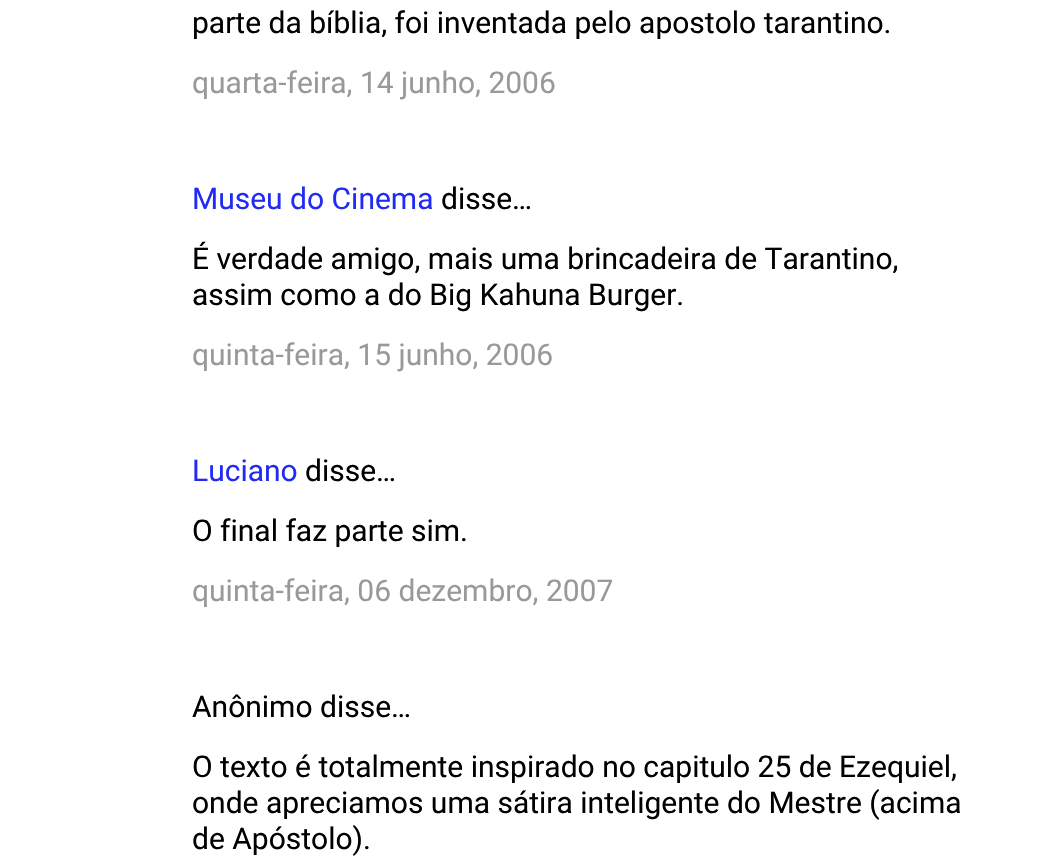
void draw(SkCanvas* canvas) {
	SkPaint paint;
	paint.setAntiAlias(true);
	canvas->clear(0xffffffff);
	SkFont f1(fontMgr->matchFamilyStyle("Roboto", SkFontStyle::Normal()), 30);
	f1.setSubpixel(true);
	paint.setColor(0xff000000);
	canvas->drawString("parte da bíblia, foi inventada pelo apostolo tarantino.", 192, 33, f1, paint);
	paint.setColor(0xff999999);
	canvas->drawString("quarta-feira, 14 junho, 2006", 192, 93, f1, paint);
	paint.setColor(0xff212bf3);
	canvas->drawString("Museu do Cinema", 192, 209, f1, paint);
	paint.setColor(0xff000000);
	canvas->drawString("disse…", 441, 209, f1, paint);
	canvas->drawString("É verdade amigo, mais uma brincadeira de Tarantino,", 192, 269, f1, paint);
	canvas->drawString("assim como a do Big Kahuna Burger.", 192, 305, f1, paint);
	paint.setColor(0xff999999);
	canvas->drawString("quinta-feira, 15 junho, 2006", 192, 365, f1, paint);
	paint.setColor(0xff212bf3);
	canvas->drawString("Luciano", 192, 481, f1, paint);
	paint.setColor(0xff000000);
	canvas->drawString("disse…", 305, 481, f1, paint);
	canvas->drawString("O final faz parte sim.", 192, 541, f1, paint);
	paint.setColor(0xff999999);
	canvas->drawString("quinta-feira, 06 dezembro, 2007", 192, 601, f1, paint);
	paint.setColor(0xff000000);
	canvas->drawString("Anônimo disse…", 192, 717, f1, paint);
	canvas->drawString("O texto é totalmente inspirado no capitulo 25 de Ezequiel,", 192, 777, f1, paint);
	canvas->drawString("onde apreciamos uma sátira inteligente do Mestre (acima", 192, 813, f1, paint);
	canvas->drawString("de Apóstolo).", 192, 849, f1, paint);
}
